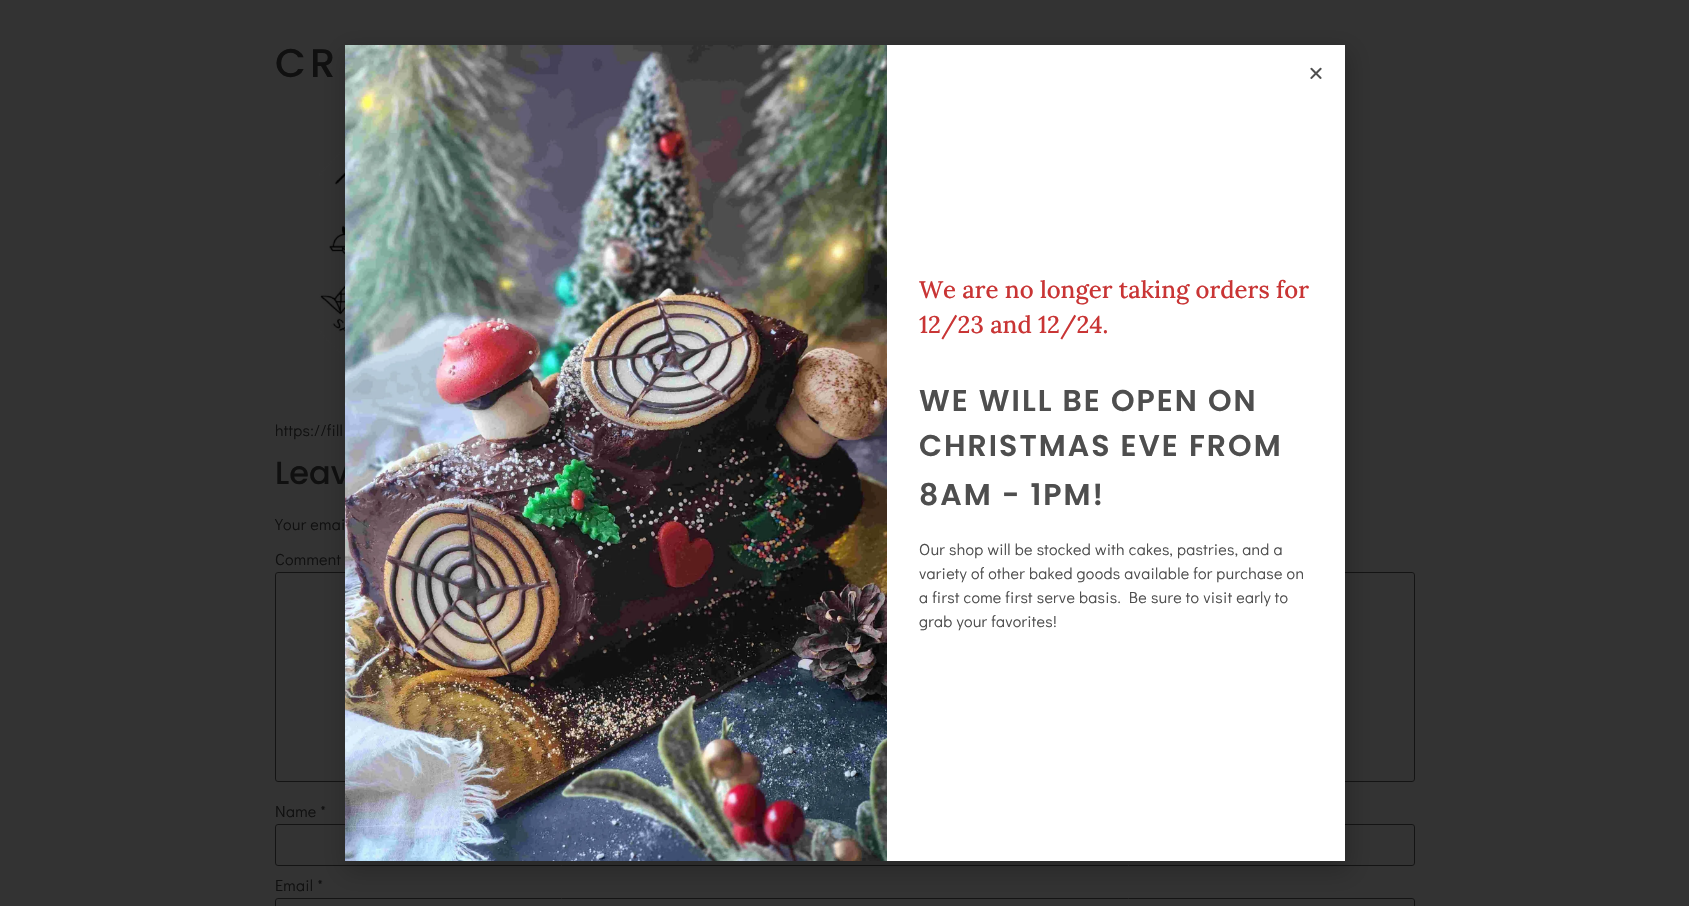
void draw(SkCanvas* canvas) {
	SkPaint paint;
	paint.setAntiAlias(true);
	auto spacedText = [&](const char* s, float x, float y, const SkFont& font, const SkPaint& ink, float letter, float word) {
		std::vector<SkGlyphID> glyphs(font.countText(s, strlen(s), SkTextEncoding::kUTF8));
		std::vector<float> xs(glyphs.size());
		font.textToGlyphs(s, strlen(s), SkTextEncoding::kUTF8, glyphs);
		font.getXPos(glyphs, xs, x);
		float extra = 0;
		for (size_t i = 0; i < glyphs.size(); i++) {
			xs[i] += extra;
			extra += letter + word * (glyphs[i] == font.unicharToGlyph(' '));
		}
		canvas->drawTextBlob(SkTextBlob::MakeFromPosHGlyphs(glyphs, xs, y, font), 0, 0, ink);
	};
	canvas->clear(0xff333333);
	SkFont f1(fontMgr->matchFamilyStyle("Poppins", SkFontStyle(500, SkFontStyle::kNormal_Width, SkFontStyle::kUpright_Slant)), 40);
	f1.setSubpixel(true);
	paint.setColor(0xff101010);
	spacedText("CR", 275, 77, f1, paint, 4, 0);
	canvas->drawImageRect(SkImages::DeferredFromEncodedData(SkData::MakeFromFileName("img1.png")), SkRect::MakeXYWH(319, 149, 26, 208), SkSamplingOptions());
	SkFont f2(fontMgr->matchFamilyStyle("Didact Gothic", SkFontStyle::Normal()), 16);
	f2.setSubpixel(true);
	spacedText("https://fill", 275, 436, f2, paint, 0.3, 0);
	SkFont f3(fontMgr->matchFamilyStyle("Poppins", SkFontStyle(500, SkFontStyle::kNormal_Width, SkFontStyle::kUpright_Slant)), 32);
	f3.setSubpixel(true);
	canvas->drawString("Leav", 275, 484, f3, paint);
	spacedText("Your emai", 275, 530, f2, paint, 0.3, 0);
	spacedText("Comment", 275, 565, f2, paint, 0.3, 0);
	paint.setStroke(true);
	paint.setStrokeWidth(1);
	paint.setColor(0xff141414);
	canvas->drawRoundRect(SkRect::MakeXYWH(275.5, 572.5, 1139, 209), 2.5, 2.5, paint);
	paint.setStroke(false);
	paint.setColor(0xff101010);
	spacedText("Name *", 275, 817, f2, paint, 0.3, 0);
	paint.setStroke(true);
	paint.setColor(0xff141414);
	canvas->drawRoundRect(SkRect::MakeXYWH(275.5, 824.5, 1139, 41), 2.5, 2.5, paint);
	paint.setStroke(false);
	paint.setColor(0xff101010);
	spacedText("Email *", 275, 891, f2, paint, 0.3, 0);
	paint.setStroke(true);
	paint.setColor(0xff141414);
	canvas->drawRoundRect(SkRect::MakeXYWH(275.5, 898.5, 1139, 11), 2.5, 2.5, paint);
	paint.setStroke(false);
	paint.setColor(0x33000000);
	paint.setMaskFilter(SkMaskFilter::MakeBlur(kNormal_SkBlurStyle, 11.5));
	canvas->drawRect(SkRect::MakeXYWH(344, 50, 1006, 822), paint);
	paint.setMaskFilter(nullptr);
	paint.setColor(0xffffffff);
	canvas->drawRect(SkRect::MakeXYWH(887, 45, 458, 816), paint);
	canvas->drawImageRect(SkImages::DeferredFromEncodedData(SkData::MakeFromFileName("img2.png")), SkRect::MakeXYWH(1310, 67, 12, 12), SkSamplingOptions());
	canvas->drawImageRect(SkImages::DeferredFromEncodedData(SkData::MakeFromFileName("img3.png")), SkRect::MakeXYWH(345, 45, 542, 816), SkSamplingOptions());
	SkFont f4(fontMgr->matchFamilyStyle("Lora", SkFontStyle(500, SkFontStyle::kNormal_Width, SkFontStyle::kUpright_Slant)), 24);
	f4.setSubpixel(true);
	paint.setColor(0xffc93535);
	canvas->drawString("We are no longer taking orders for", 919, 298, f4, paint);
	canvas->drawString("12/23 and 12/24.", 919, 333, f4, paint);
	SkFont f5(fontMgr->matchFamilyStyle("Poppins", SkFontStyle(600, SkFontStyle::kNormal_Width, SkFontStyle::kUpright_Slant)), 30);
	f5.setSubpixel(true);
	paint.setColor(0xff4e4e4e);
	spacedText("WE WILL BE OPEN ON", 919, 411, f5, paint, 2, 0);
	spacedText("CHRISTMAS EVE FROM", 919, 456, f5, paint, 2, 0);
	spacedText("8AM - 1PM!", 919, 505, f5, paint, 2, 0);
	spacedText("Our shop will be stocked with cakes, pastries, and a", 919, 555, f2, paint, 0.3, 0);
	spacedText("variety of other baked goods available for purchase on", 919, 579, f2, paint, 0.3, 0);
	spacedText("a first come first serve basis.  Be sure to visit early to", 919, 603, f2, paint, 0.3, 0);
	spacedText("grab your favorites!", 919, 627, f2, paint, 0.3, 0);
}
